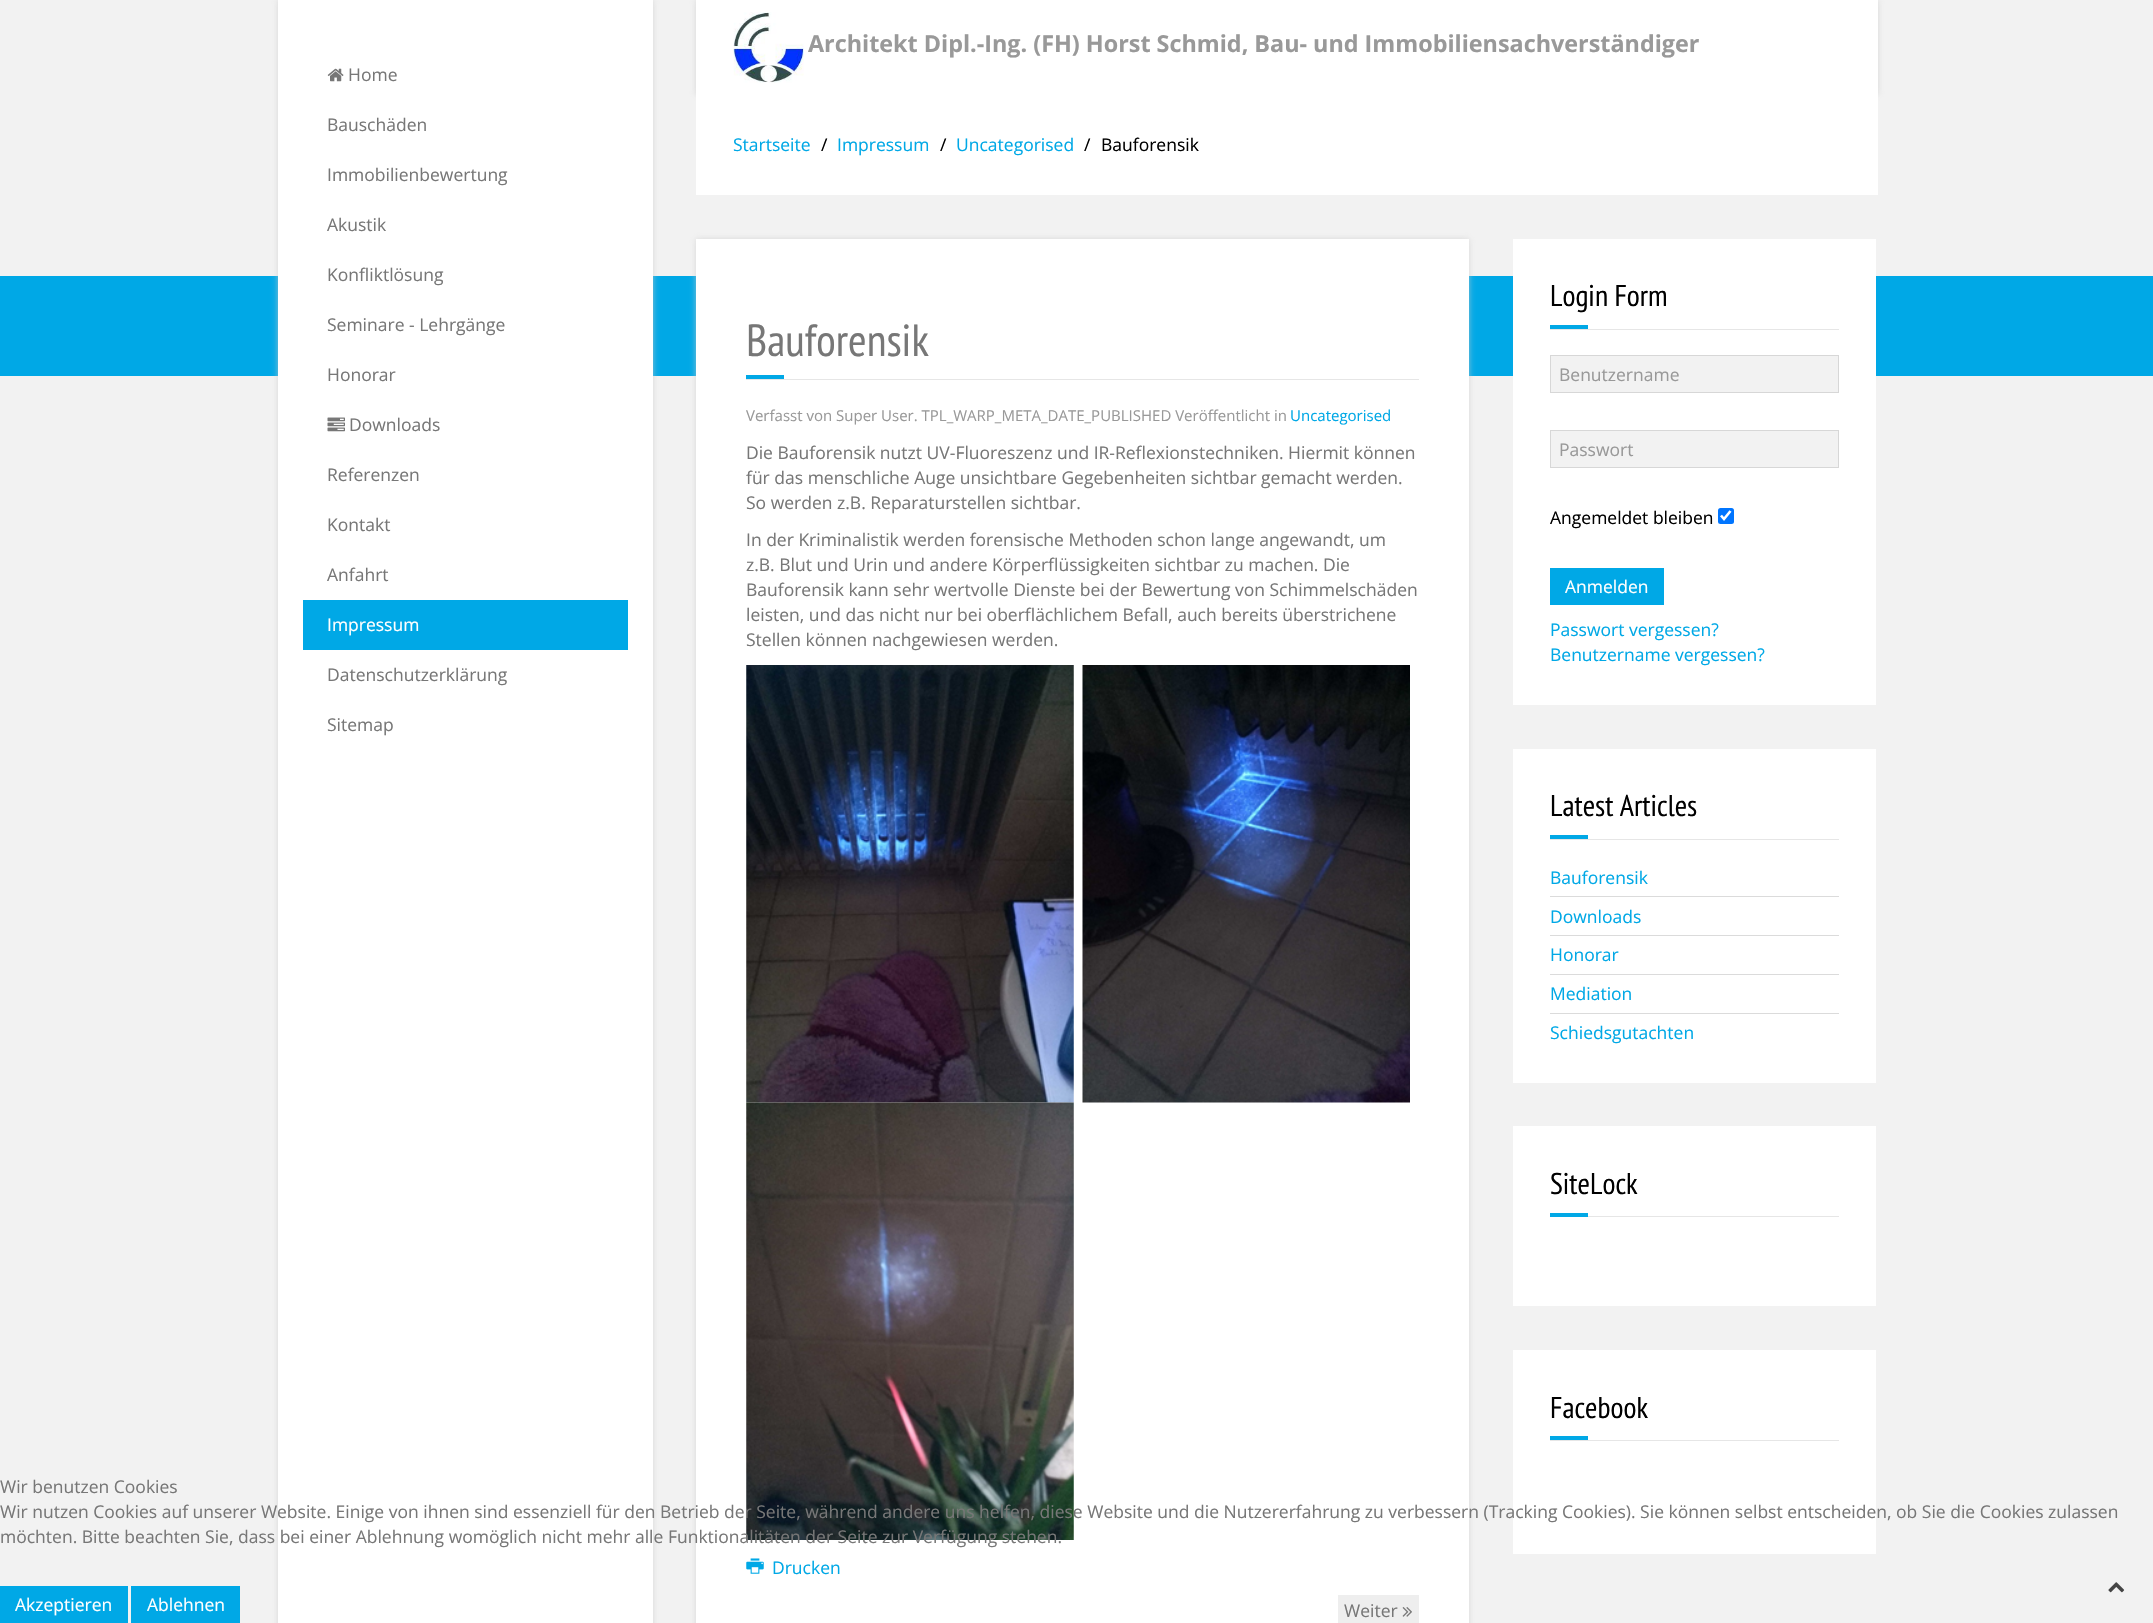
void draw(SkCanvas* canvas) {
	SkPaint paint;
	paint.setAntiAlias(true);
	auto svgPath = [&](const char* data, bool evenOdd = false) {
		SkPath result = *SkParsePath::FromSVGString(data);
		if (evenOdd) result.setFillType(SkPathFillType::kEvenOdd);
		return result;
	};
	canvas->clear(0xfff2f2f2);
	paint.setColor(0xff00a8e6);
	canvas->drawRect(SkRect::MakeXYWH(0, 276, 2153, 100), paint);
	paint.setColor(0xb3cccccc);
	paint.setMaskFilter(SkMaskFilter::MakeBlur(kNormal_SkBlurStyle, 3));
	canvas->drawRect(SkRect::MakeXYWH(278, 0, 375, 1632), paint);
	paint.setMaskFilter(nullptr);
	paint.setColor(0xffffffff);
	canvas->drawRect(SkRect::MakeXYWH(278, 0, 375, 1623), paint);
	canvas->drawImageRect(SkImages::DeferredFromEncodedData(SkData::MakeFromFileName("img1.png")), SkRect::MakeXYWH(327, 68, 17, 14), SkSamplingOptions());
	SkFont f1(fontMgr->matchFamilyStyle("Open Sans", SkFontStyle::Normal()), 17.5);
	f1.setSubpixel(true);
	paint.setColor(0xff777777);
	canvas->drawString("Home", 348, 81, f1, paint);
	canvas->drawString("Bauschäden", 327, 131, f1, paint);
	canvas->drawString("Immobilienbewertung", 327, 181, f1, paint);
	canvas->drawString("Akustik", 327, 231, f1, paint);
	canvas->drawString("Konfliktlösung", 327, 281, f1, paint);
	canvas->drawString("Seminare - Lehrgänge", 327, 331, f1, paint);
	canvas->drawString("Honorar", 327, 381, f1, paint);
	canvas->drawImageRect(SkImages::DeferredFromEncodedData(SkData::MakeFromFileName("img2.png")), SkRect::MakeXYWH(327, 417, 18, 15), SkSamplingOptions());
	canvas->drawString("Downloads", 349, 431, f1, paint);
	canvas->drawString("Referenzen", 327, 481, f1, paint);
	canvas->drawString("Kontakt", 327, 531, f1, paint);
	canvas->drawString("Anfahrt", 327, 581, f1, paint);
	paint.setColor(0xff00a8e6);
	canvas->drawRect(SkRect::MakeXYWH(303, 600, 325, 50), paint);
	paint.setColor(0xffffffff);
	canvas->drawString("Impressum", 327, 631, f1, paint);
	paint.setColor(0xff777777);
	canvas->drawString("Datenschutzerklärung", 327, 681, f1, paint);
	canvas->drawString("Sitemap", 327, 731, f1, paint);
	paint.setColor(0xb3cccccc);
	paint.setMaskFilter(SkMaskFilter::MakeBlur(kNormal_SkBlurStyle, 3));
	canvas->drawRect(SkRect::MakeXYWH(696, 0, 1182, 95), paint);
	paint.setMaskFilter(nullptr);
	paint.setColor(0xffffffff);
	canvas->drawRect(SkRect::MakeXYWH(696, 0, 1182, 195), paint);
	canvas->drawImageRect(SkImages::DeferredFromEncodedData(SkData::MakeFromFileName("img3.png")), SkRect::MakeXYWH(733, 12, 71, 71), SkSamplingOptions());
	SkFont f2(fontMgr->matchFamilyStyle("Open Sans", SkFontStyle::Bold()), 23.35);
	f2.setSubpixel(true);
	paint.setColor(0xff999999);
	canvas->drawString("Architekt Dipl.-Ing. (FH) Horst Schmid, Bau- und Immobiliensachverständiger", 808, 52, f2, paint);
	paint.setColor(0xff00a8e6);
	canvas->drawString("Startseite", 733, 151, f1, paint);
	paint.setColor(0xff000000);
	canvas->drawString("/", 821, 151, f1, paint);
	paint.setColor(0xff00a8e6);
	canvas->drawString("Impressum", 837, 151, f1, paint);
	paint.setColor(0xff000000);
	canvas->drawString("/", 940, 151, f1, paint);
	paint.setColor(0xff00a8e6);
	canvas->drawString("Uncategorised", 956, 151, f1, paint);
	paint.setColor(0xff000000);
	canvas->drawString("/", 1084, 151, f1, paint);
	canvas->drawString("Bauforensik", 1101, 151, f1, paint);
	paint.setColor(0xb3cccccc);
	paint.setMaskFilter(SkMaskFilter::MakeBlur(kNormal_SkBlurStyle, 3));
	canvas->drawRect(SkRect::MakeXYWH(696, 239, 773, 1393), paint);
	paint.setMaskFilter(nullptr);
	paint.setColor(0xffffffff);
	canvas->drawRect(SkRect::MakeXYWH(696, 239, 773, 1384), paint);
	paint.setColor(0xffe6e6e6);
	canvas->drawRect(SkRect::MakeXYWH(746, 379, 673, 1), paint);
	SkFont f3(fontMgr->matchFamilyStyle("PT Sans Narrow", SkFontStyle::Normal()), 45);
	f3.setSubpixel(true);
	paint.setColor(0xff777777);
	canvas->drawString("Bauforensik", 746, 356, f3, paint);
	paint.setColor(0xff00a8e6);
	canvas->drawRect(SkRect::MakeXYWH(746, 375, 38, 4), paint);
	SkFont f4(fontMgr->matchFamilyStyle("Open Sans", SkFontStyle::Normal()), 15);
	f4.setSubpixel(true);
	paint.setColor(0xff999999);
	canvas->drawString("Verfasst von Super User. TPL_WARP_META_DATE_PUBLISHED Veröffentlicht in", 746, 421, f4, paint);
	paint.setColor(0xff00a8e6);
	canvas->drawString("Uncategorised", 1290, 421, f4, paint);
	paint.setColor(0xff777777);
	canvas->drawString("Die Bauforensik nutzt UV-Fluoreszenz und IR-Reflexionstechniken. Hiermit können", 746, 459, f1, paint);
	canvas->drawString("für das menschliche Auge unsichtbare Gegebenheiten sichtbar gemacht werden.", 746, 484, f1, paint);
	canvas->drawString("So werden z.B. Reparaturstellen sichtbar.", 746, 509, f1, paint);
	canvas->drawString("In der Kriminalistik werden forensische Methoden schon lange angewandt, um", 746, 546, f1, paint);
	canvas->drawString("z.B. Blut und Urin und andere Körperflüssigkeiten sichtbar zu machen. Die", 746, 571, f1, paint);
	canvas->drawString("Bauforensik kann sehr wertvolle Dienste bei der Bewertung von Schimmelschäden", 746, 596, f1, paint);
	canvas->drawString("leisten, und das nicht nur bei oberflächlichem Befall, auch bereits überstrichene", 746, 621, f1, paint);
	canvas->drawString("Stellen können nachgewiesen werden.", 746, 646, f1, paint);
	canvas->drawImageRect(SkImages::DeferredFromEncodedData(SkData::MakeFromFileName("img4.png")), SkRect::MakeXYWH(746, 665, 328, 438), SkSamplingOptions());
	canvas->drawImageRect(SkImages::DeferredFromEncodedData(SkData::MakeFromFileName("img5.png")), SkRect::MakeXYWH(1082, 665, 328, 438), SkSamplingOptions());
	canvas->drawImageRect(SkImages::DeferredFromEncodedData(SkData::MakeFromFileName("img6.png")), SkRect::MakeXYWH(746, 1102, 328, 438), SkSamplingOptions());
	canvas->drawImageRect(SkImages::DeferredFromEncodedData(SkData::MakeFromFileName("img7.png")), SkRect::MakeXYWH(746, 1558, 18, 16), SkSamplingOptions());
	paint.setColor(0xff00a8e6);
	canvas->drawString("Drucken", 772, 1574, f1, paint);
	paint.setColor(0xffeeeeee);
	canvas->drawRect(SkRect::MakeXYWH(1338, 1595, 81, 28), paint);
	paint.setColor(0xff777777);
	canvas->drawString("Weiter", 1344, 1617, f1, paint);
	canvas->drawImageRect(SkImages::DeferredFromEncodedData(SkData::MakeFromFileName("img8.png")), SkRect::MakeXYWH(1402, 1607, 10, 10), SkSamplingOptions());
	paint.setColor(0xffffffff);
	canvas->drawRect(SkRect::MakeXYWH(1513, 239, 363, 466), paint);
	paint.setColor(0xffe6e6e6);
	canvas->drawRect(SkRect::MakeXYWH(1550, 329, 289, 1), paint);
	SkFont f5(fontMgr->matchFamilyStyle("PT Sans Narrow", SkFontStyle::Normal()), 30);
	f5.setSubpixel(true);
	paint.setColor(0xff000000);
	canvas->drawString("Login Form", 1550, 306, f5, paint);
	paint.setColor(0xff00a8e6);
	canvas->drawRect(SkRect::MakeXYWH(1550, 325, 38, 4), paint);
	paint.setColor(0xfff2f2f2);
	canvas->drawRect(SkRect::MakeXYWH(1550.5, 355.5, 288, 37), paint);
	paint.setStroke(true);
	paint.setStrokeWidth(1);
	paint.setColor(0xffd7d7d7);
	canvas->drawRect(SkRect::MakeXYWH(1550.5, 355.5, 288, 37), paint);
	paint.setStroke(false);
	paint.setColor(0xff999999);
	canvas->drawString("Benutzername", 1559, 381, f1, paint);
	paint.setColor(0xfff2f2f2);
	canvas->drawRect(SkRect::MakeXYWH(1550.5, 430.5, 288, 37), paint);
	paint.setStroke(true);
	paint.setColor(0xffd7d7d7);
	canvas->drawRect(SkRect::MakeXYWH(1550.5, 430.5, 288, 37), paint);
	paint.setStroke(false);
	paint.setColor(0xff999999);
	canvas->drawString("Passwort", 1559, 456, f1, paint);
	paint.setColor(0xff000000);
	canvas->drawString("Angemeldet bleiben", 1550, 524, f1, paint);
	paint.setColor(0xff0075ff);
	canvas->drawRoundRect(SkRect::MakeXYWH(1718, 508, 16, 16), 2.5, 2.5, paint);
	paint.setStroke(true);
	paint.setStrokeWidth(2.6);
	paint.setColor(0xffffffff);
	canvas->drawPath(svgPath("M1721 515.5L1724 519L1730.5 511"), paint);
	paint.setStroke(false);
	paint.setColor(0xff00a8e6);
	canvas->drawRect(SkRect::MakeXYWH(1550, 568, 114, 37), paint);
	paint.setColor(0xffffffff);
	canvas->drawString("Anmelden", 1565, 593, f1, paint);
	paint.setColor(0xff00a8e6);
	canvas->drawString("Passwort vergessen?", 1550, 636, f1, paint);
	canvas->drawString("Benutzername vergessen?", 1550, 661, f1, paint);
	paint.setColor(0xffffffff);
	canvas->drawRect(SkRect::MakeXYWH(1513, 749, 363, 334), paint);
	paint.setColor(0xffe6e6e6);
	canvas->drawRect(SkRect::MakeXYWH(1550, 839, 289, 1), paint);
	paint.setColor(0xff000000);
	canvas->drawString("Latest Articles", 1550, 816, f5, paint);
	paint.setColor(0xff00a8e6);
	canvas->drawRect(SkRect::MakeXYWH(1550, 835, 38, 4), paint);
	canvas->drawString("Bauforensik", 1550, 884, f1, paint);
	paint.setColor(0xffdbdbdb);
	canvas->drawRect(SkRect::MakeXYWH(1550, 896, 289, 1), paint);
	paint.setColor(0xff00a8e6);
	canvas->drawString("Downloads", 1550, 923, f1, paint);
	paint.setColor(0xffdbdbdb);
	canvas->drawRect(SkRect::MakeXYWH(1550, 935, 289, 1), paint);
	paint.setColor(0xff00a8e6);
	canvas->drawString("Honorar", 1550, 961, f1, paint);
	paint.setColor(0xffdbdbdb);
	canvas->drawRect(SkRect::MakeXYWH(1550, 974, 289, 1), paint);
	paint.setColor(0xff00a8e6);
	canvas->drawString("Mediation", 1550, 1000, f1, paint);
	paint.setColor(0xffdbdbdb);
	canvas->drawRect(SkRect::MakeXYWH(1550, 1013, 289, 1), paint);
	paint.setColor(0xff00a8e6);
	canvas->drawString("Schiedsgutachten", 1550, 1039, f1, paint);
	paint.setColor(0xffffffff);
	canvas->drawRect(SkRect::MakeXYWH(1513, 1126, 363, 180), paint);
	paint.setColor(0xffe6e6e6);
	canvas->drawRect(SkRect::MakeXYWH(1588, 1216, 251, 1), paint);
	paint.setColor(0xff000000);
	canvas->drawString("SiteLock", 1550, 1194, f5, paint);
	paint.setColor(0xff00a8e6);
	canvas->drawRect(SkRect::MakeXYWH(1550, 1213, 38, 4), paint);
	paint.setColor(0xffffffff);
	canvas->drawRect(SkRect::MakeXYWH(1513, 1350, 363, 204), paint);
	paint.setColor(0xffe6e6e6);
	canvas->drawRect(SkRect::MakeXYWH(1550, 1440, 289, 1), paint);
	paint.setColor(0xff000000);
	canvas->drawString("Facebook", 1550, 1418, f5, paint);
	paint.setColor(0xff00a8e6);
	canvas->drawRect(SkRect::MakeXYWH(1550, 1436, 38, 4), paint);
	paint.setColor(0xff777777);
	canvas->drawString("Wir benutzen Cookies", 0, 1493, f1, paint);
	canvas->drawString("Wir nutzen Cookies auf unserer Website. Einige von ihnen sind essenziell für den Betrieb der Seite, während andere uns helfen, diese Website und die Nutzererfahrung zu verbessern (Tracking Cookies). Sie können selbst entscheiden, ob Sie die Cookies zulassen", 0, 1518, f1, paint);
	canvas->drawString("möchten. Bitte beachten Sie, dass bei einer Ablehnung womöglich nicht mehr alle Funktionalitäten der Seite zur Verfügung stehen.", 0, 1543, f1, paint);
	paint.setColor(0xff00a8e6);
	canvas->drawRect(SkRect::MakeXYWH(0, 1586, 128, 37), paint);
	paint.setColor(0xffffffff);
	canvas->drawString("Akzeptieren", 15, 1611, f1, paint);
	paint.setColor(0xff00a8e6);
	canvas->drawRect(SkRect::MakeXYWH(131, 1586, 109, 37), paint);
	paint.setColor(0xffffffff);
	canvas->drawString("Ablehnen", 147, 1611, f1, paint);
	canvas->drawImageRect(SkImages::DeferredFromEncodedData(SkData::MakeFromFileName("img9.png")), SkRect::MakeXYWH(2108, 1582, 17, 11), SkSamplingOptions());
}
